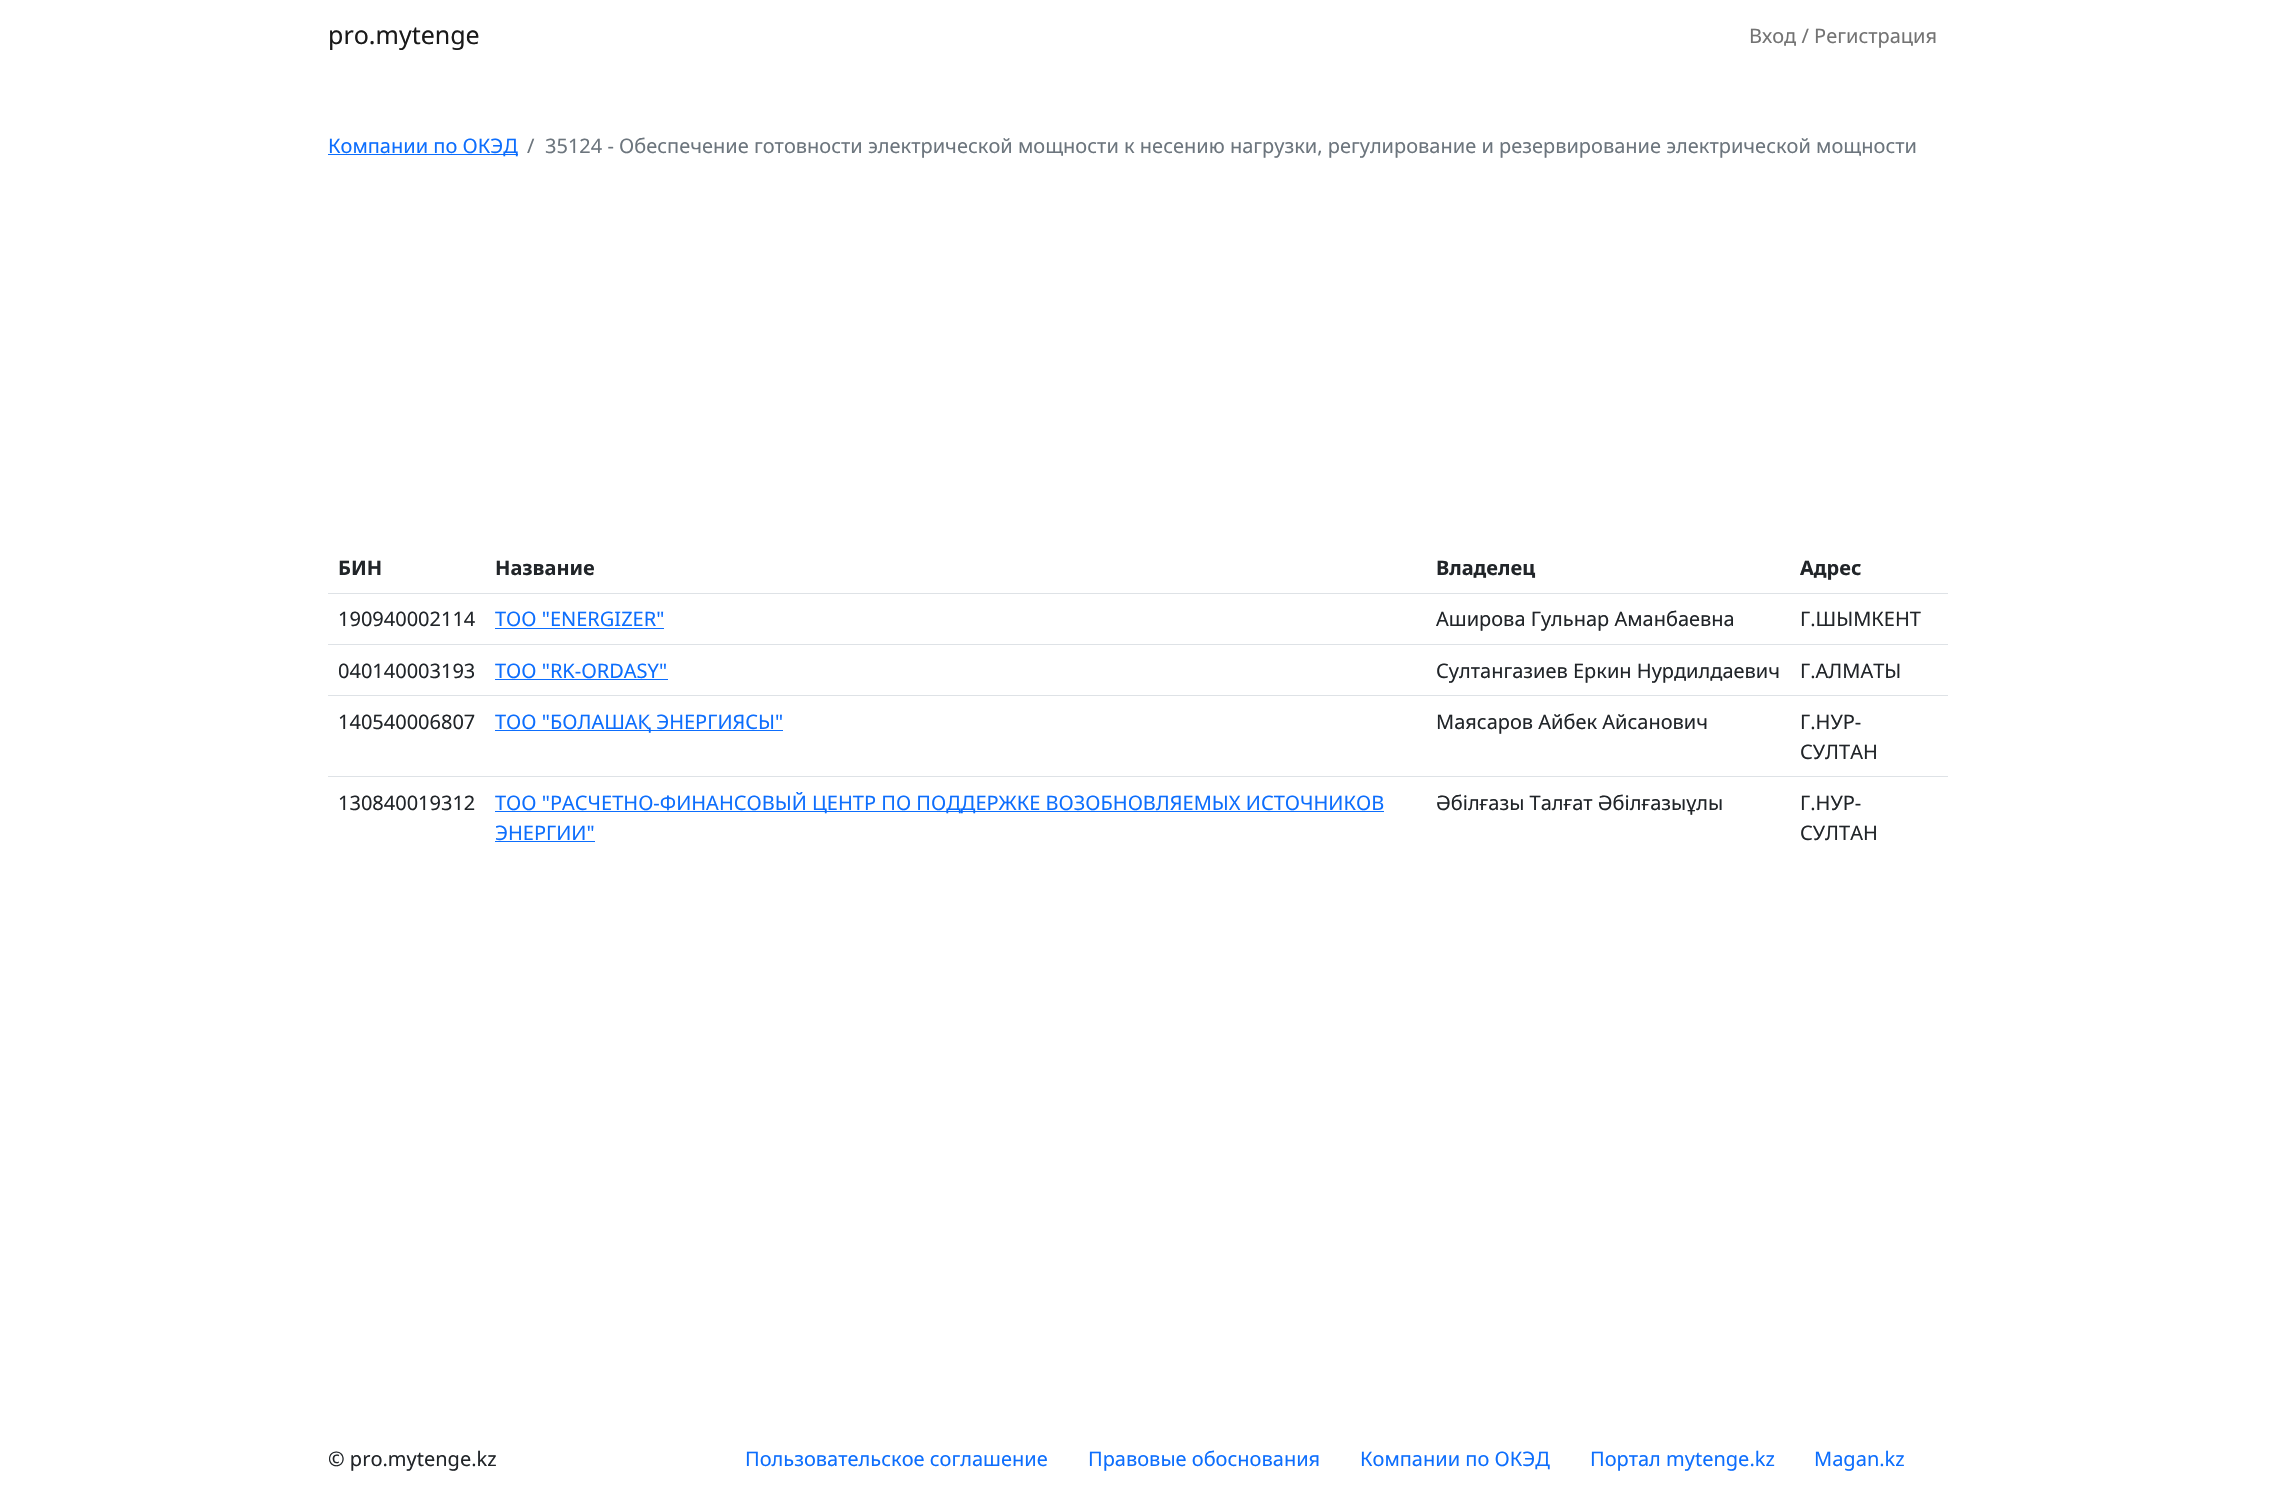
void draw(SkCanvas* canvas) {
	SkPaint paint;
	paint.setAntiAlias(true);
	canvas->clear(0xffffffff);
	SkFont f1(fontMgr->matchFamilyStyle("Noto Sans", SkFontStyle::Normal()), 25);
	f1.setSubpixel(true);
	paint.setColor(0xff1a1a1a);
	canvas->drawString("pro.mytenge", 328, 44, f1, paint);
	SkFont f2(fontMgr->matchFamilyStyle("Noto Sans", SkFontStyle::Normal()), 20);
	f2.setSubpixel(true);
	paint.setColor(0xff737373);
	canvas->drawString("Вход / Регистрация", 1749, 43, f2, paint);
	paint.setColor(0xff0d6efd);
	canvas->drawRect(SkRect::MakeXYWH(328, 154, 190, 1), paint);
	canvas->drawString("Компании по ОКЭД", 328, 153, f2, paint);
	paint.setColor(0xff6c757d);
	canvas->drawString("/", 527, 153, f2, paint);
	canvas->drawString("35124 - Обеспечение готовности электрической мощности к несению нагрузки, регулирование и резервирование электрической мощности", 545, 153, f2, paint);
	SkFont f3(fontMgr->matchFamilyStyle("Noto Sans", SkFontStyle::Bold()), 20);
	f3.setSubpixel(true);
	paint.setColor(0xff212529);
	canvas->drawString("БИН", 338, 575, f3, paint);
	canvas->drawString("Название", 495, 575, f3, paint);
	canvas->drawString("Владелец", 1436, 575, f3, paint);
	paint.setColor(0xffdee2e6);
	canvas->drawRect(SkRect::MakeXYWH(328, 593, 1620, 1), paint);
	paint.setColor(0xff212529);
	canvas->drawString("Адрес", 1800, 575, f3, paint);
	canvas->drawString("190940002114", 338, 626, f2, paint);
	paint.setColor(0xff0d6efd);
	canvas->drawString("ТОО \"ENERGIZER\"", 495, 626, f2, paint);
	canvas->drawRect(SkRect::MakeXYWH(495, 628, 169, 1), paint);
	paint.setColor(0xff212529);
	canvas->drawString("Аширова Гульнар Аманбаевна", 1436, 626, f2, paint);
	paint.setColor(0xffdee2e6);
	canvas->drawRect(SkRect::MakeXYWH(328, 644, 1620, 1), paint);
	paint.setColor(0xff212529);
	canvas->drawString("Г.ШЫМКЕНТ", 1800, 626, f2, paint);
	canvas->drawString("040140003193", 338, 678, f2, paint);
	paint.setColor(0xff0d6efd);
	canvas->drawString("ТОО \"RK-ORDASY\"", 495, 678, f2, paint);
	canvas->drawRect(SkRect::MakeXYWH(495, 679, 173, 1), paint);
	paint.setColor(0xff212529);
	canvas->drawString("Султангазиев Еркин Нурдилдаевич", 1436, 678, f2, paint);
	paint.setColor(0xffdee2e6);
	canvas->drawRect(SkRect::MakeXYWH(328, 695, 1620, 1), paint);
	paint.setColor(0xff212529);
	canvas->drawString("Г.АЛМАТЫ", 1800, 678, f2, paint);
	canvas->drawString("140540006807", 338, 729, f2, paint);
	paint.setColor(0xff0d6efd);
	canvas->drawRect(SkRect::MakeXYWH(495, 730, 288, 1), paint);
	canvas->drawString("ТОО \"БОЛАШАҚ ЭНЕРГИЯСЫ\"", 495, 729, f2, paint);
	paint.setColor(0xff212529);
	canvas->drawString("Маясаров Айбек Айсанович", 1436, 729, f2, paint);
	paint.setColor(0xffdee2e6);
	canvas->drawRect(SkRect::MakeXYWH(328, 776, 1620, 1), paint);
	paint.setColor(0xff212529);
	canvas->drawString("Г.НУР-", 1800, 729, f2, paint);
	canvas->drawString("СУЛТАН", 1800, 759, f2, paint);
	canvas->drawString("130840019312", 338, 810, f2, paint);
	paint.setColor(0xff0d6efd);
	canvas->drawRect(SkRect::MakeXYWH(495, 811, 889, 1), paint);
	canvas->drawString("ТОО \"РАСЧЕТНО-ФИНАНСОВЫЙ ЦЕНТР ПО ПОДДЕРЖКЕ ВОЗОБНОВЛЯЕМЫХ ИСТОЧНИКОВ", 495, 810, f2, paint);
	canvas->drawString("ЭНЕРГИИ\"", 495, 840, f2, paint);
	canvas->drawRect(SkRect::MakeXYWH(495, 841, 100, 1), paint);
	paint.setColor(0xff212529);
	canvas->drawString("Әбілғазы Талғат Әбілғазыұлы", 1436, 810, f2, paint);
	canvas->drawString("Г.НУР-", 1800, 810, f2, paint);
	canvas->drawString("СУЛТАН", 1800, 840, f2, paint);
	canvas->drawString("© pro.mytenge.kz", 328, 1466, f2, paint);
	paint.setColor(0xff0d6efd);
	canvas->drawString("Пользовательское соглашение", 745, 1466, f2, paint);
	canvas->drawString("Правовые обоснования", 1088, 1466, f2, paint);
	canvas->drawString("Компании по ОКЭД", 1360, 1466, f2, paint);
	canvas->drawString("Портал mytenge.kz", 1590, 1466, f2, paint);
	canvas->drawString("Magan.kz", 1814, 1466, f2, paint);
}
